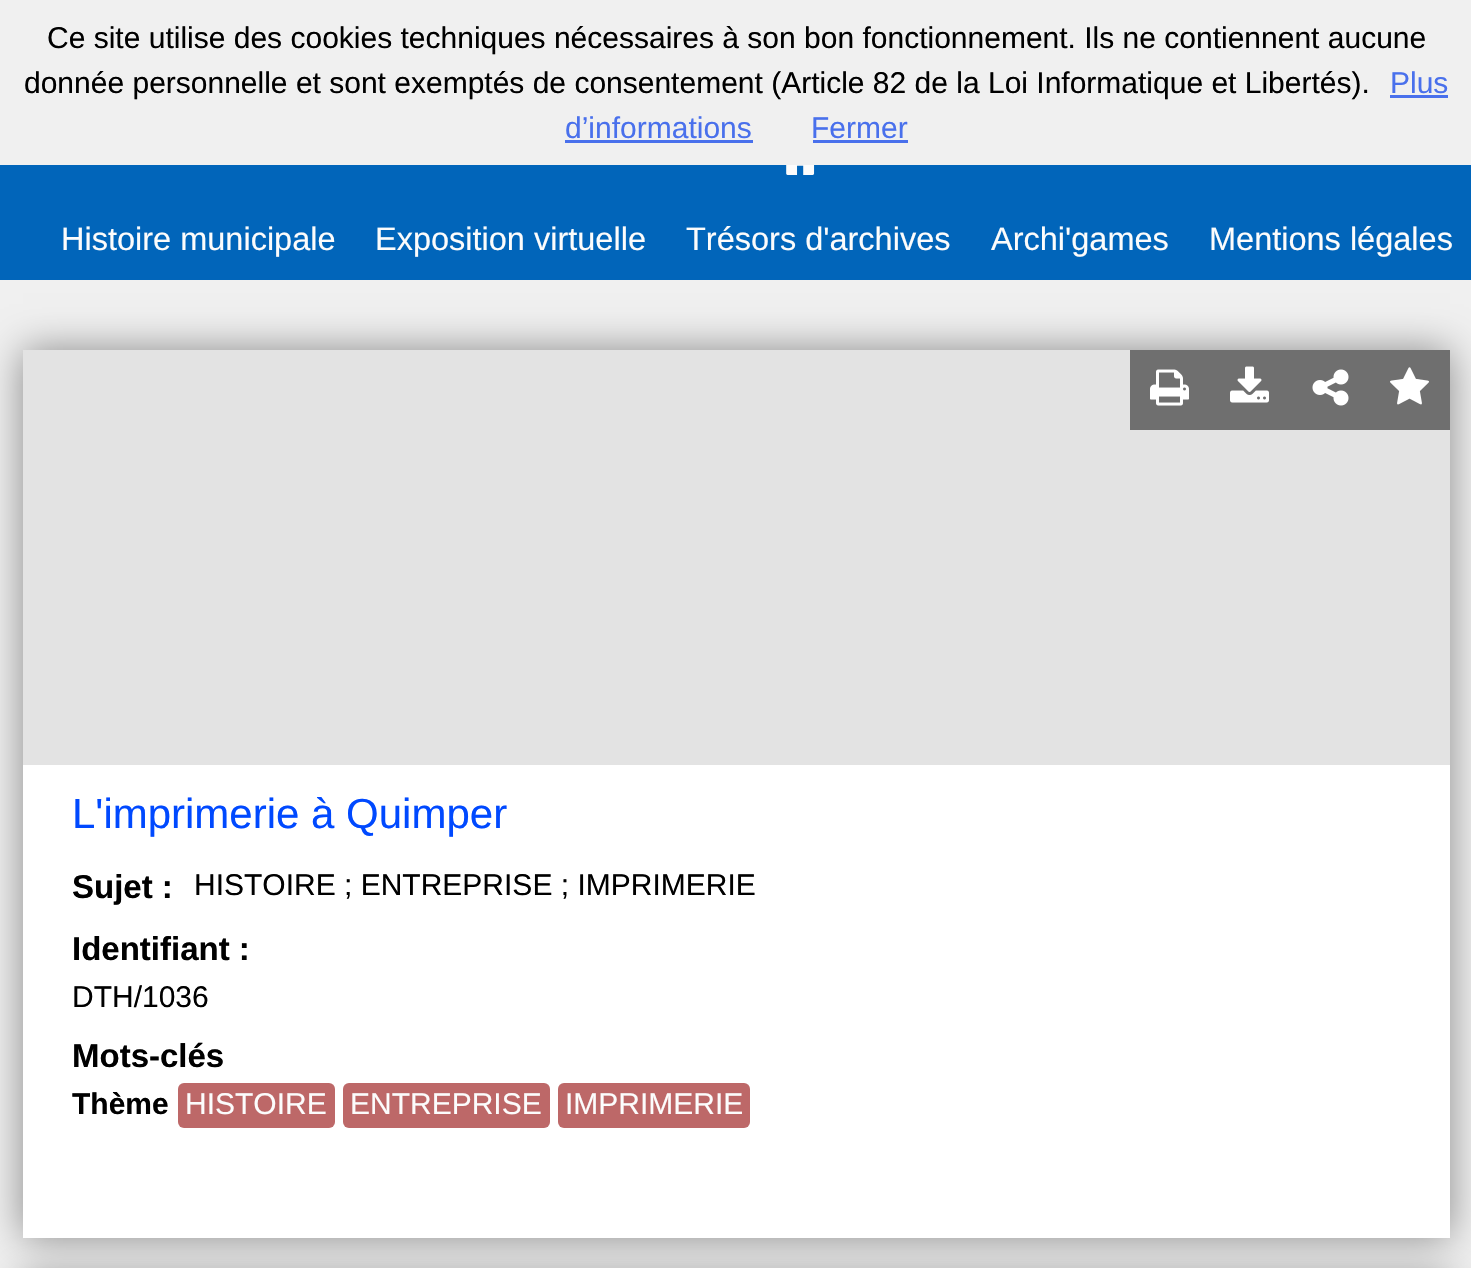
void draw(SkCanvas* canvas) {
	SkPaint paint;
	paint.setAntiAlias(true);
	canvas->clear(0xfff0f0f0);
	SkFont f1(fontMgr->matchFamilyStyle("Liberation Sans", SkFontStyle::Normal()), 30);
	f1.setSubpixel(true);
	paint.setColor(0xff000000);
	canvas->drawString("Ce site utilise des cookies techniques nécessaires à son bon fonctionnement. Ils ne contiennent aucune", 47, 48, f1, paint);
	canvas->drawString("donnée personnelle et sont exemptés de consentement (Article 82 de la Loi Informatique et Libertés).", 24, 93, f1, paint);
	paint.setColor(0xff4970ec);
	canvas->drawString("Plus", 1390, 93, f1, paint);
	canvas->drawRect(SkRect::MakeXYWH(1390, 95, 58, 3), paint);
	canvas->drawString("d’informations", 565, 138, f1, paint);
	canvas->drawRect(SkRect::MakeXYWH(565, 140, 188, 3), paint);
	canvas->drawString("Fermer", 811, 138, f1, paint);
	canvas->drawRect(SkRect::MakeXYWH(813, 140, 95, 3), paint);
	paint.setColor(0xff0165ba);
	canvas->drawRect(SkRect::MakeXYWH(0, 165, 1471, 115), paint);
	canvas->drawImageRect(SkImages::DeferredFromEncodedData(SkData::MakeFromFileName("img1.png")), SkRect::MakeXYWH(786, 165, 29, 10), SkSamplingOptions());
	SkFont f2(fontMgr->matchFamilyStyle("Liberation Sans", SkFontStyle::Normal()), 32.5);
	f2.setSubpixel(true);
	paint.setColor(0xfffcfcfc);
	canvas->drawString("Histoire municipale", 61, 250, f2, paint);
	canvas->drawString("Exposition virtuelle", 375, 250, f2, paint);
	canvas->drawString("Trésors d'archives", 686, 250, f2, paint);
	canvas->drawString("Archi'games", 991, 250, f2, paint);
	canvas->drawString("Mentions légales", 1209, 250, f2, paint);
	paint.setColor(0xff888888);
	paint.setMaskFilter(SkMaskFilter::MakeBlur(kNormal_SkBlurStyle, 19));
	canvas->drawRect(SkRect::MakeXYWH(23, 350, 1427, 888), paint);
	paint.setMaskFilter(nullptr);
	paint.setMaskFilter(SkMaskFilter::MakeBlur(kNormal_SkBlurStyle, 19));
	canvas->drawRect(SkRect::MakeXYWH(23, 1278, 1427, 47), paint);
	paint.setMaskFilter(nullptr);
	paint.setColor(0xffffffff);
	canvas->drawRect(SkRect::MakeXYWH(23, 765, 1427, 473), paint);
	paint.setColor(0xffe3e3e3);
	canvas->drawRect(SkRect::MakeXYWH(23, 350, 1427, 415), paint);
	paint.setColor(0xff6f6f6f);
	canvas->drawRect(SkRect::MakeXYWH(1130, 350, 160, 80), paint);
	canvas->drawImageRect(SkImages::DeferredFromEncodedData(SkData::MakeFromFileName("img2.png")), SkRect::MakeXYWH(1150, 369, 39, 37), SkSamplingOptions());
	canvas->drawRect(SkRect::MakeXYWH(1290, 350, 160, 80), paint);
	canvas->drawImageRect(SkImages::DeferredFromEncodedData(SkData::MakeFromFileName("img3.png")), SkRect::MakeXYWH(1390, 367, 39, 38), SkSamplingOptions());
	canvas->drawImageRect(SkImages::DeferredFromEncodedData(SkData::MakeFromFileName("img4.png")), SkRect::MakeXYWH(1230, 366, 39, 37), SkSamplingOptions());
	canvas->drawImageRect(SkImages::DeferredFromEncodedData(SkData::MakeFromFileName("img5.png")), SkRect::MakeXYWH(1312, 369, 37, 37), SkSamplingOptions());
	SkFont f3(fontMgr->matchFamilyStyle("Liberation Sans", SkFontStyle::Normal()), 42);
	f3.setSubpixel(true);
	paint.setColor(0xff0049ff);
	canvas->drawString("L'imprimerie à Quimper", 72, 828, f3, paint);
	SkFont f4(fontMgr->matchFamilyStyle("Liberation Sans", SkFontStyle::Bold()), 33);
	f4.setSubpixel(true);
	paint.setColor(0xff000000);
	canvas->drawString("Sujet :", 72, 898, f4, paint);
	canvas->drawString("HISTOIRE ; ENTREPRISE ; IMPRIMERIE", 194, 895, f1, paint);
	canvas->drawString("Identifiant :", 72, 960, f4, paint);
	canvas->drawString("DTH/1036", 72, 1007, f1, paint);
	canvas->drawString("Mots-clés", 72, 1067, f4, paint);
	SkFont f5(fontMgr->matchFamilyStyle("Liberation Sans", SkFontStyle::Bold()), 30);
	f5.setSubpixel(true);
	canvas->drawString("Thème", 72, 1114, f5, paint);
	paint.setColor(0xffbd6868);
	canvas->drawRoundRect(SkRect::MakeXYWH(178, 1083, 157, 45), 6, 6, paint);
	paint.setColor(0xfffcfcfc);
	canvas->drawString("HISTOIRE", 185, 1114, f1, paint);
	paint.setColor(0xffbd6868);
	canvas->drawRoundRect(SkRect::MakeXYWH(343, 1083, 207, 45), 6, 6, paint);
	paint.setColor(0xfffcfcfc);
	canvas->drawString("ENTREPRISE", 350, 1114, f1, paint);
	paint.setColor(0xffbd6868);
	canvas->drawRoundRect(SkRect::MakeXYWH(558, 1083, 192, 45), 6, 6, paint);
	paint.setColor(0xfffcfcfc);
	canvas->drawString("IMPRIMERIE", 565, 1114, f1, paint);
}
